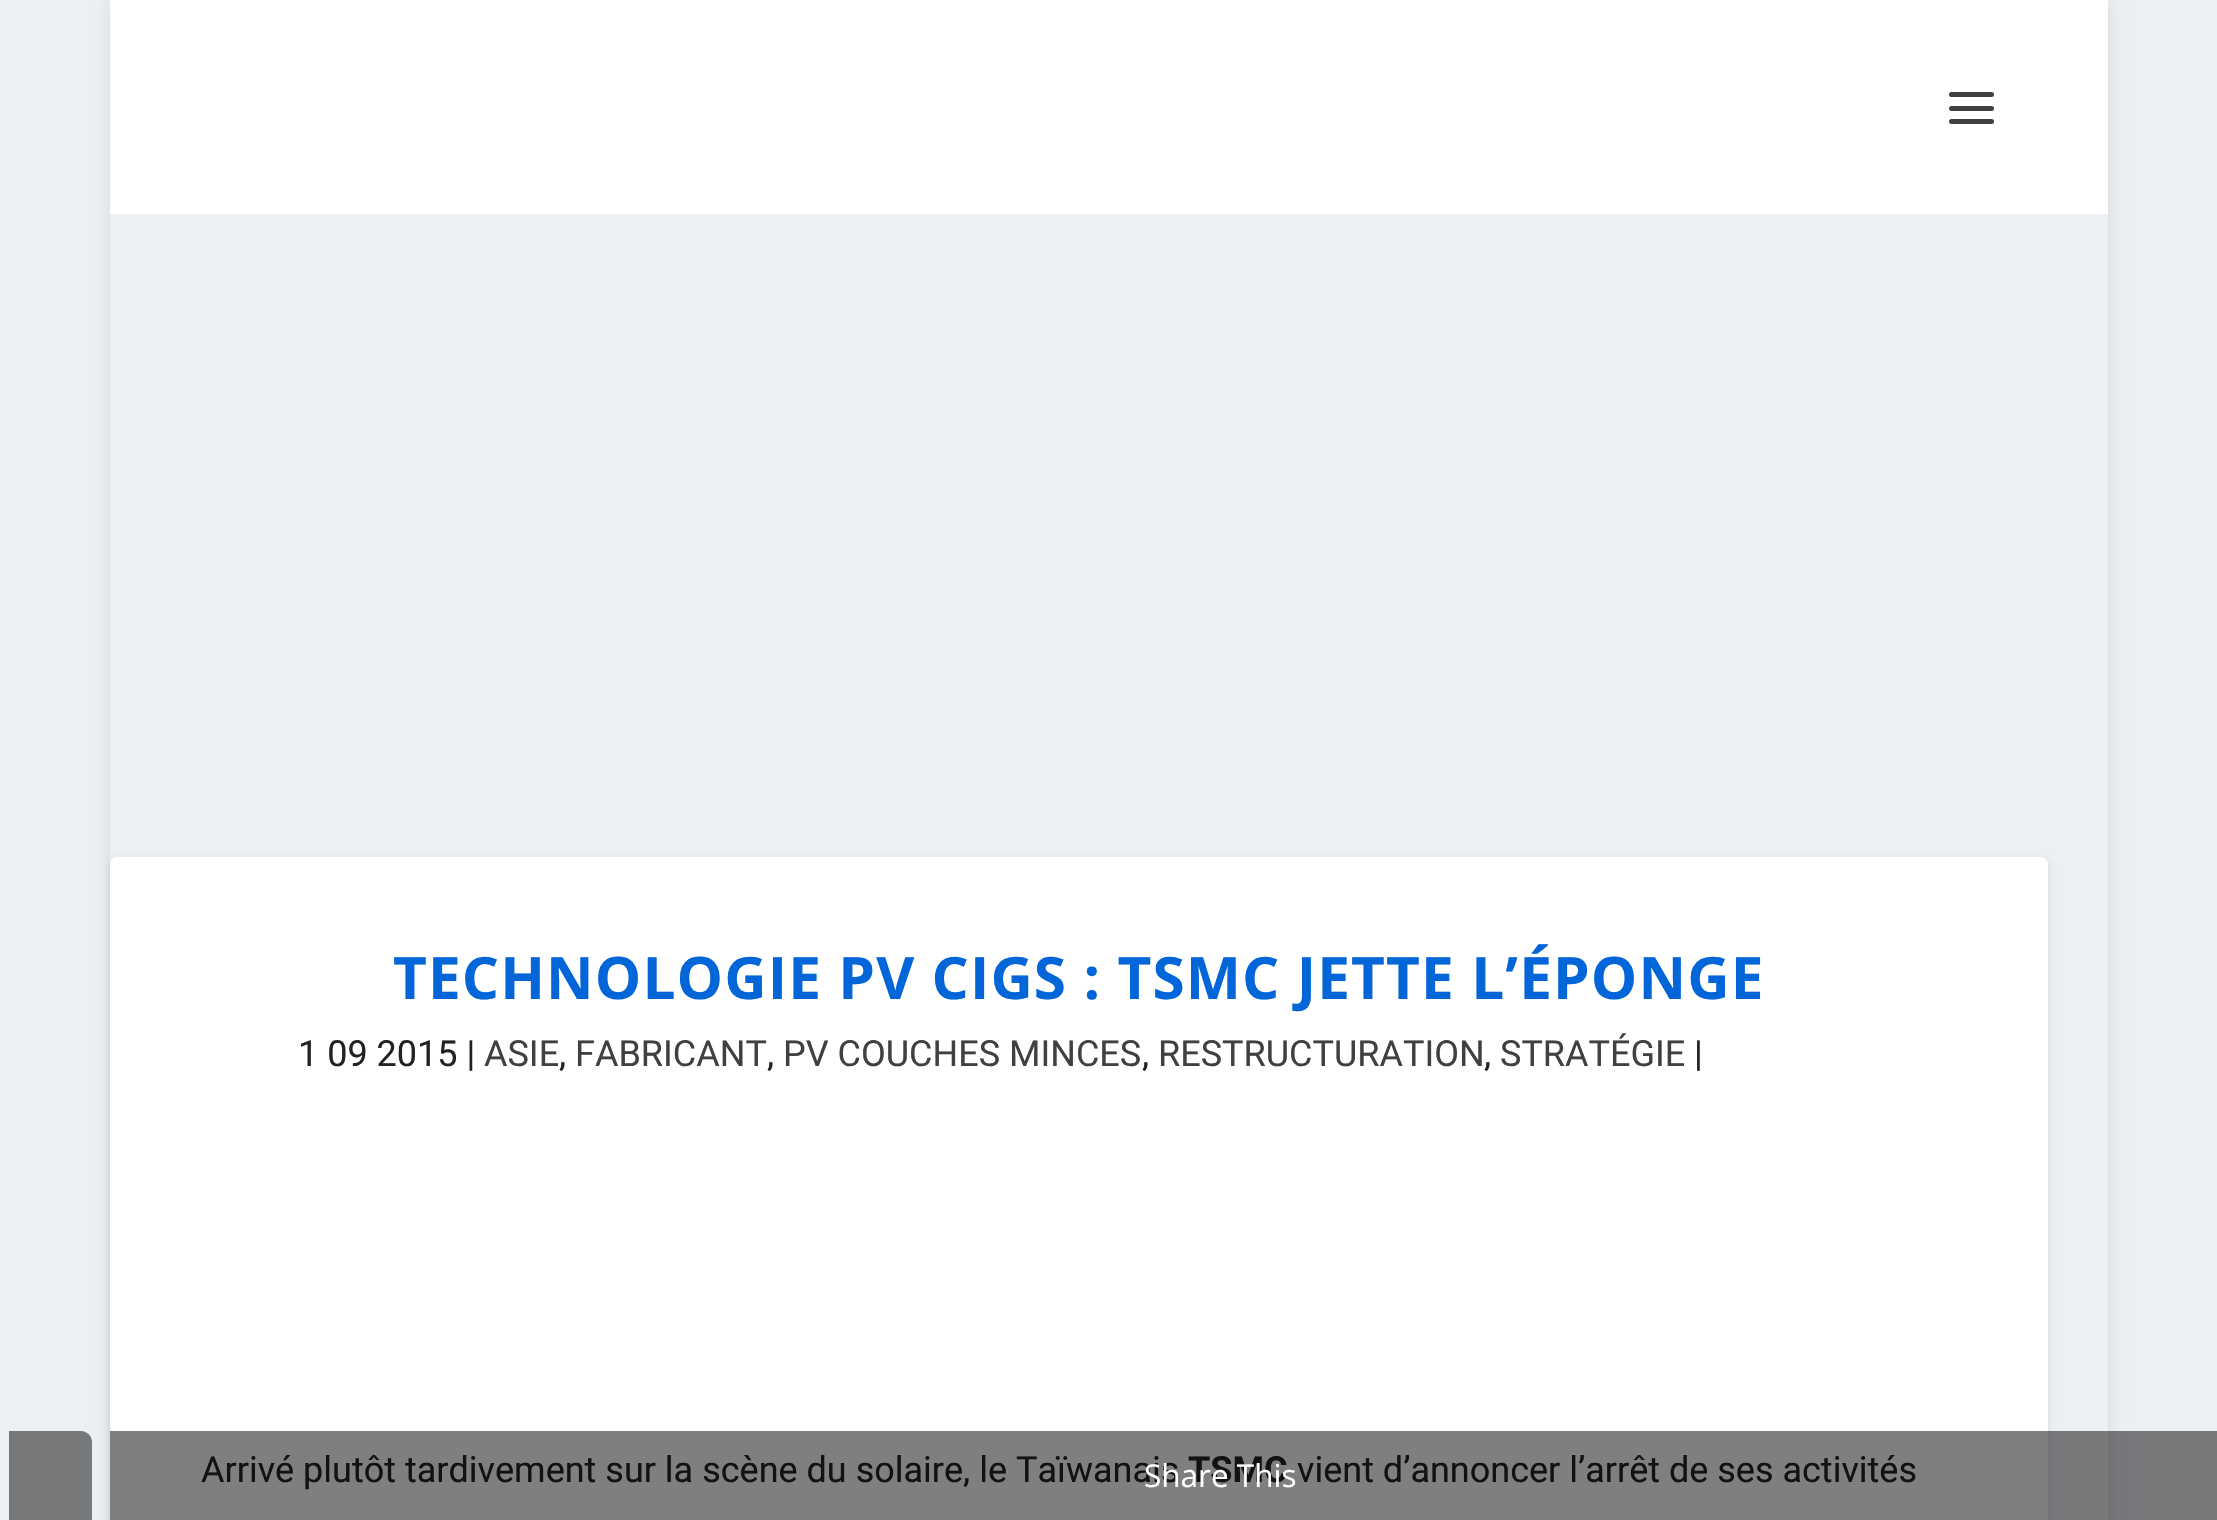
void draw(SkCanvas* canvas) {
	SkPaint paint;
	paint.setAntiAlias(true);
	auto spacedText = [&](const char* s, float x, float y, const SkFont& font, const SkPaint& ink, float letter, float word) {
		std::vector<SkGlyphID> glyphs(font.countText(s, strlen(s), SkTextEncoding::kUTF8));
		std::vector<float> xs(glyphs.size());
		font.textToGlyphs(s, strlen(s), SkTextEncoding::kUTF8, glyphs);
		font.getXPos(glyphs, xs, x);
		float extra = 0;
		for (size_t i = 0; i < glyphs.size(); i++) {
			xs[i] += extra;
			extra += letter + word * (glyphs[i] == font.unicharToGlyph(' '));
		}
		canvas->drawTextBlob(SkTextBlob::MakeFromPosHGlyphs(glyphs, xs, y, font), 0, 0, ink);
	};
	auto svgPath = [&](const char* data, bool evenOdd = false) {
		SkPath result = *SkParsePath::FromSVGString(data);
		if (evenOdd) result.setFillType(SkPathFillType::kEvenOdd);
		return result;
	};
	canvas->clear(0xffecf0f5);
	canvas->save();
	canvas->clipPath(svgPath("M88 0H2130V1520H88ZM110 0H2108V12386H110Z", true), true);
	paint.setColor(0x1a000000);
	paint.setMaskFilter(SkMaskFilter::MakeBlur(kNormal_SkBlurStyle, 7));
	canvas->drawRect(SkRect::MakeXYWH(110, 2, 1998, 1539), paint);
	paint.setMaskFilter(nullptr);
	canvas->restore();
	paint.setColor(0xff76787a);
	canvas->drawPath(svgPath("M9 1431H81C87 1431 92 1436 92 1442V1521H9Z"), paint);
	paint.setColor(0xffffffff);
	canvas->drawRect(SkRect::MakeXYWH(110, 0, 1998, 214), paint);
	paint.setColor(0xff404040);
	canvas->drawRoundRect(SkRect::MakeXYWH(1949, 92, 45, 5), 2.5, 2.5, paint);
	canvas->drawRoundRect(SkRect::MakeXYWH(1949, 106, 45, 5), 2.5, 2.5, paint);
	canvas->drawRoundRect(SkRect::MakeXYWH(1949, 119, 45, 5), 2.5, 2.5, paint);
	paint.setColor(0x1a000000);
	paint.setMaskFilter(SkMaskFilter::MakeBlur(kNormal_SkBlurStyle, 3.5));
	canvas->drawRoundRect(SkRect::MakeXYWH(110, 860, 1938, 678), 7, 7, paint);
	paint.setMaskFilter(nullptr);
	paint.setColor(0xffffffff);
	canvas->drawRoundRect(SkRect::MakeXYWH(110, 857, 1938, 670), 7, 7, paint);
	SkFont f1(fontMgr->matchFamilyStyle("Open Sans", SkFontStyle::Bold()), 58.5);
	f1.setSubpixel(true);
	paint.setColor(0xff0266d8);
	spacedText("TECHNOLOGIE PV CIGS : TSMC JETTE L’ÉPONGE", 393, 999, f1, paint, 1.1, 0);
	SkFont f2(fontMgr->matchFamilyStyle("Roboto", SkFontStyle::Normal()), 36);
	f2.setSubpixel(true);
	paint.setColor(0xff262121);
	canvas->drawString("1 09 2015 |", 298, 1066, f2, paint);
	paint.setColor(0xff404040);
	canvas->drawString("ASIE", 484, 1066, f2, paint);
	paint.setColor(0xff262121);
	canvas->drawString(",", 559, 1066, f2, paint);
	paint.setColor(0xff404040);
	canvas->drawString("FABRICANT", 575, 1066, f2, paint);
	paint.setColor(0xff262121);
	canvas->drawString(",", 767, 1066, f2, paint);
	paint.setColor(0xff404040);
	canvas->drawString("PV COUCHES MINCES", 783, 1066, f2, paint);
	paint.setColor(0xff262121);
	canvas->drawString(",", 1142, 1066, f2, paint);
	paint.setColor(0xff404040);
	canvas->drawString("RESTRUCTURATION", 1158, 1066, f2, paint);
	paint.setColor(0xff262121);
	canvas->drawString(",", 1484, 1066, f2, paint);
	paint.setColor(0xff404040);
	canvas->drawString("STRATÉGIE", 1500, 1066, f2, paint);
	paint.setColor(0xff262121);
	canvas->drawString("|", 1694, 1066, f2, paint);
	canvas->drawString("Arrivé plutôt tardivement sur la scène du solaire, le Taïwanais", 201, 1482, f2, paint);
	SkFont f3(fontMgr->matchFamilyStyle("Roboto", SkFontStyle::Bold()), 36);
	f3.setSubpixel(true);
	canvas->drawString("TSMC", 1188, 1482, f3, paint);
	canvas->drawString("vient d’annoncer l’arrêt de ses activités", 1297, 1482, f2, paint);
	paint.setColor(0x80000000);
	canvas->drawRect(SkRect::MakeXYWH(110, 1431, 2107, 89), paint);
	SkFont f4(fontMgr->matchFamilyStyle("Open Sans", SkFontStyle::Normal()), 31.5);
	f4.setSubpixel(true);
	paint.setColor(0xffffffff);
	canvas->drawString("Share This", 1144, 1487, f4, paint);
}
